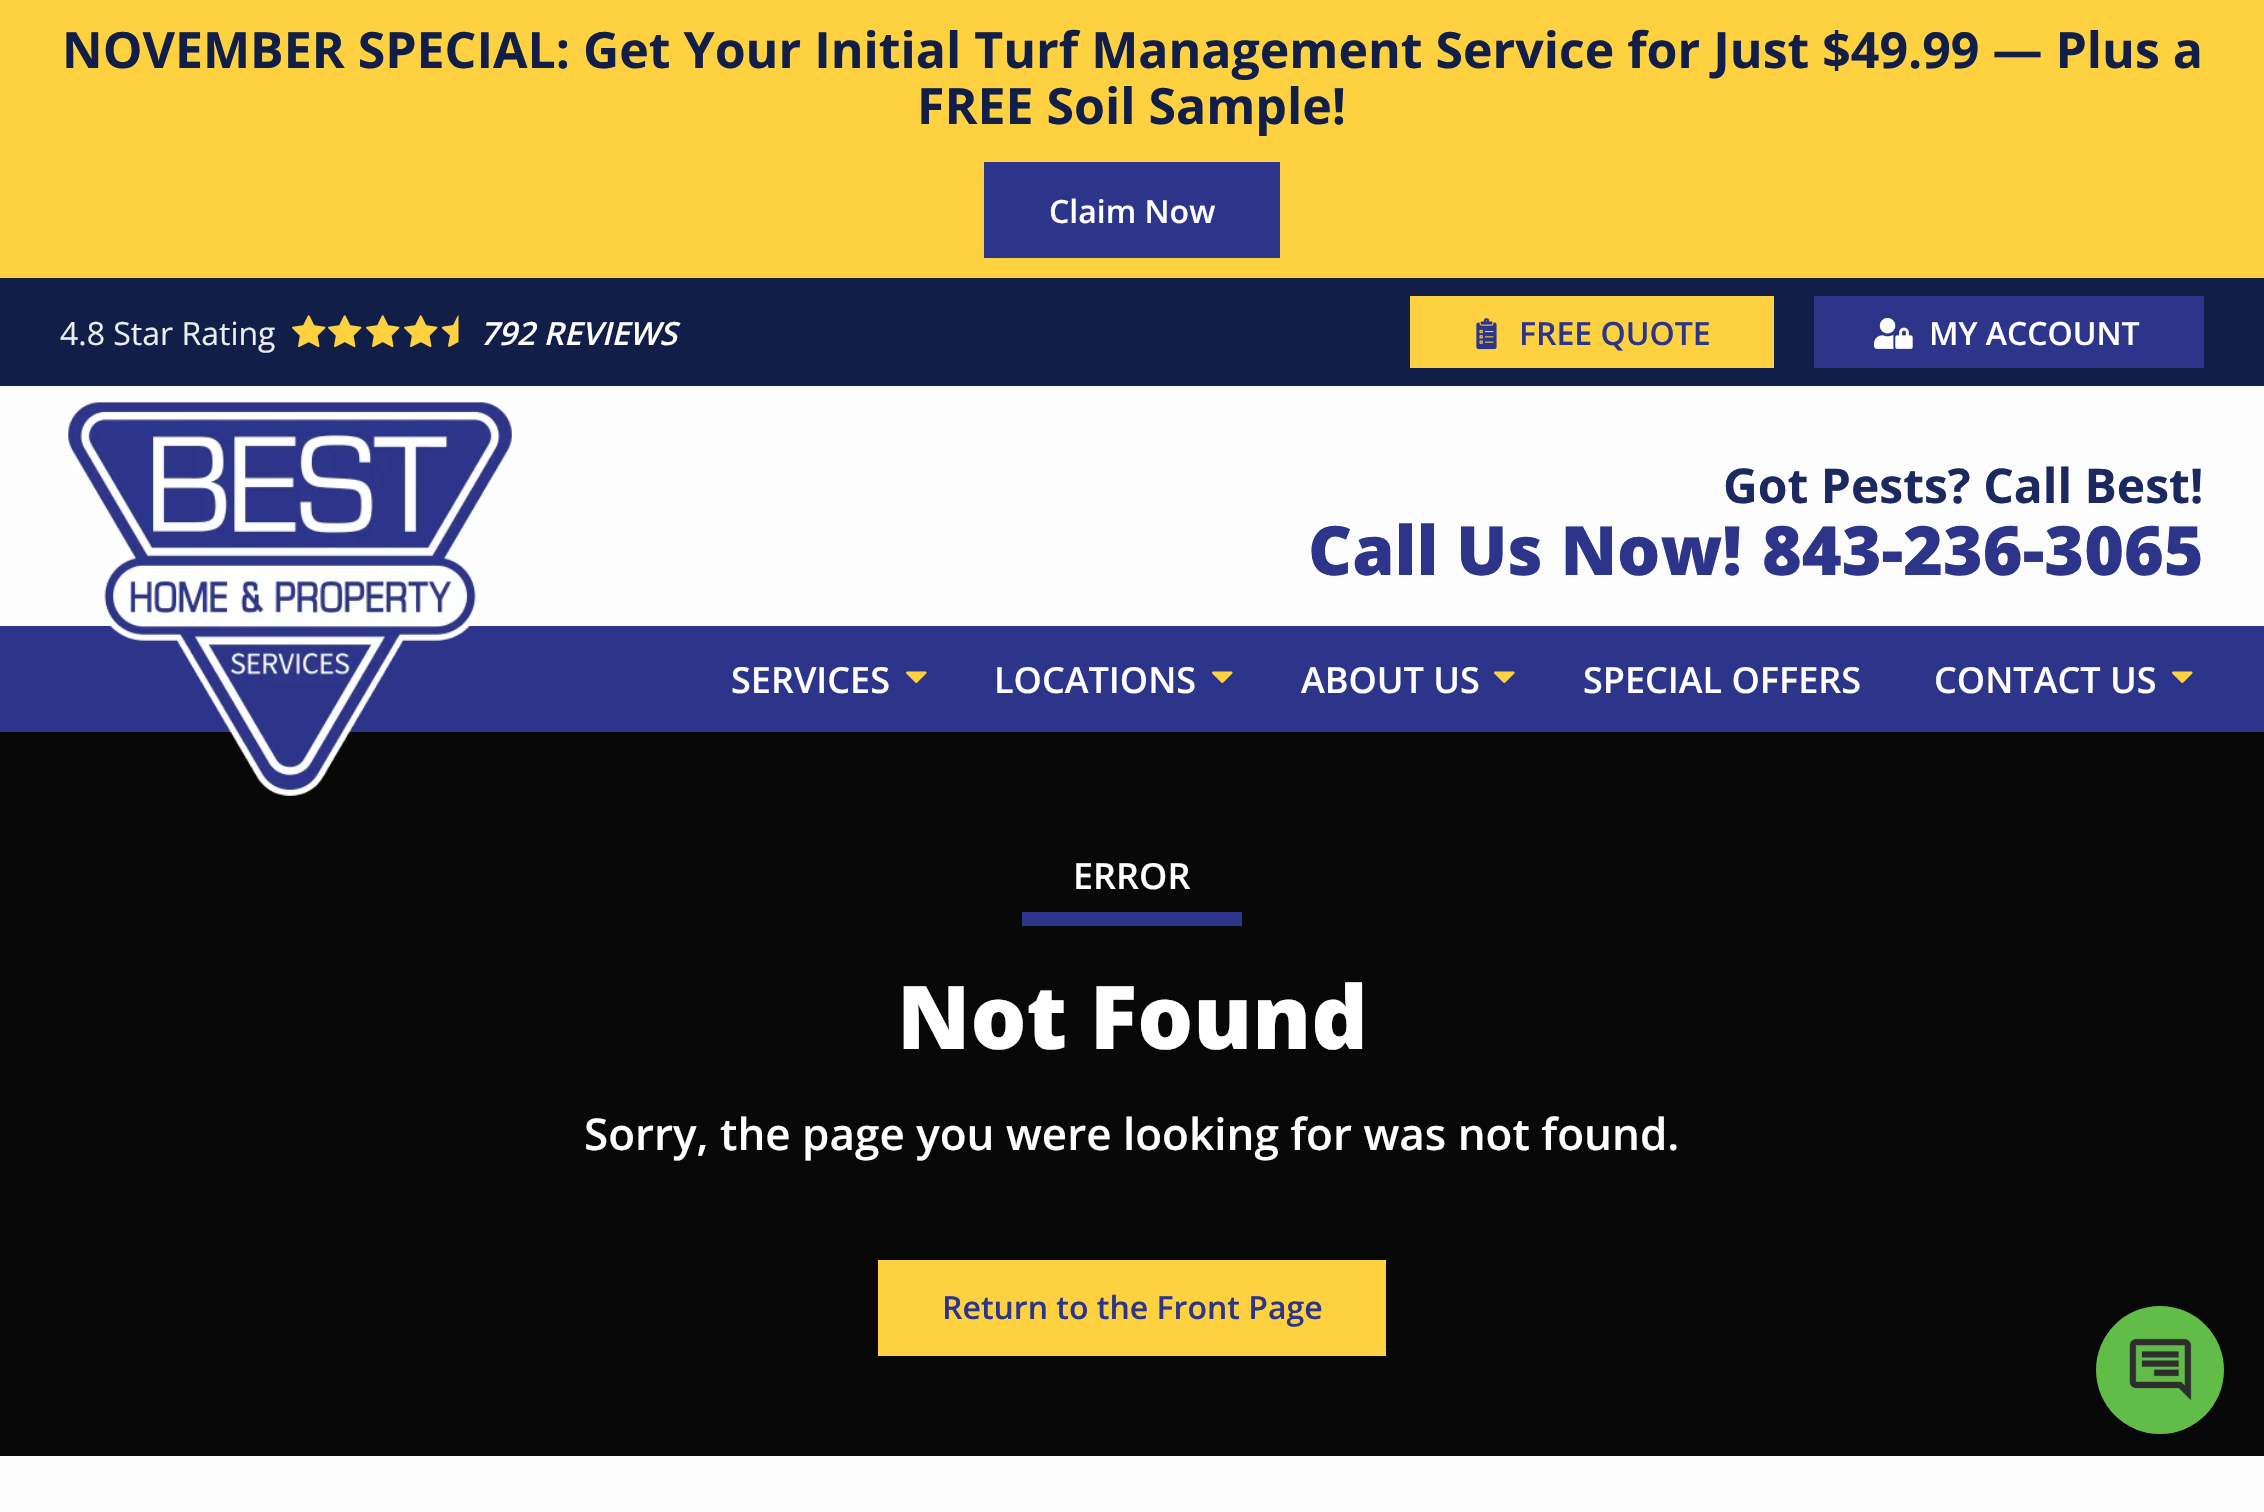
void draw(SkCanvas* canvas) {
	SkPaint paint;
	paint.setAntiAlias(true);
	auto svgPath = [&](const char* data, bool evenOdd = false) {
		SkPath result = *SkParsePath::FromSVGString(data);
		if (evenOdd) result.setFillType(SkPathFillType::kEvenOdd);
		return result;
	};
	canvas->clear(0xfffdfdfd);
	paint.setColor(0xfffed141);
	canvas->drawRect(SkRect::MakeXYWH(0, 0, 2264, 278), paint);
	SkFont f1(fontMgr->matchFamilyStyle("Open Sans", SkFontStyle::Bold()), 50);
	f1.setSubpixel(true);
	paint.setColor(0xff111e47);
	canvas->drawString("NOVEMBER SPECIAL: Get Your Initial Turf Management Service for Just $49.99 — Plus a", 62, 68, f1, paint);
	canvas->drawString("FREE Soil Sample!", 917, 124, f1, paint);
	paint.setColor(0xff2c358a);
	canvas->drawRect(SkRect::MakeXYWH(984, 162, 296, 96), paint);
	SkFont f2(fontMgr->matchFamilyStyle("Open Sans", SkFontStyle(600, SkFontStyle::kNormal_Width, SkFontStyle::kUpright_Slant)), 32);
	f2.setSubpixel(true);
	paint.setColor(0xffffffff);
	canvas->drawString("Claim Now", 1049, 223, f2, paint);
	paint.setColor(0xff111e47);
	canvas->drawRect(SkRect::MakeXYWH(0, 278, 2264, 108), paint);
	SkFont f3(fontMgr->matchFamilyStyle("Open Sans", SkFontStyle::Normal()), 32);
	f3.setSubpixel(true);
	paint.setColor(0xffeaecef);
	canvas->drawString("4.8 Star Rating", 60, 345, f3, paint);
	canvas->drawImageRect(SkImages::DeferredFromEncodedData(SkData::MakeFromFileName("img1.png")), SkRect::MakeXYWH(292, 315, 34, 33), SkSamplingOptions());
	canvas->drawImageRect(SkImages::DeferredFromEncodedData(SkData::MakeFromFileName("img1.png")), SkRect::MakeXYWH(328, 315, 34, 33), SkSamplingOptions());
	canvas->drawImageRect(SkImages::DeferredFromEncodedData(SkData::MakeFromFileName("img1.png")), SkRect::MakeXYWH(366, 315, 34, 33), SkSamplingOptions());
	canvas->drawImageRect(SkImages::DeferredFromEncodedData(SkData::MakeFromFileName("img1.png")), SkRect::MakeXYWH(404, 315, 34, 33), SkSamplingOptions());
	paint.setColor(0xfffed141);
	canvas->drawPath(svgPath("M458.5 315V342C445.5 349 447.5 350 450 335.5C439.5 325.5 438 327.5 453 325C454 324 457.5 315 458.5 315Z"), paint);
	SkFont f4(fontMgr->matchFamilyStyle("Open Sans", SkFontStyle(600, SkFontStyle::kNormal_Width, SkFontStyle::kItalic_Slant)), 32);
	f4.setSubpixel(true);
	paint.setColor(0xffffffff);
	canvas->drawString("792 REVIEWS", 480, 345, f4, paint);
	paint.setColor(0xfffed141);
	canvas->drawRect(SkRect::MakeXYWH(1410, 296, 364, 72), paint);
	canvas->drawImageRect(SkImages::DeferredFromEncodedData(SkData::MakeFromFileName("img2.png")), SkRect::MakeXYWH(1476, 318, 21, 32), SkSamplingOptions());
	paint.setColor(0xff2c358a);
	canvas->drawString("FREE QUOTE", 1519, 345, f2, paint);
	canvas->drawRect(SkRect::MakeXYWH(1814, 296, 390, 72), paint);
	canvas->drawImageRect(SkImages::DeferredFromEncodedData(SkData::MakeFromFileName("img3.png")), SkRect::MakeXYWH(1874, 318, 39, 31), SkSamplingOptions());
	paint.setColor(0xffffffff);
	canvas->drawString("MY ACCOUNT", 1929, 345, f2, paint);
	paint.setColor(0xff080808);
	canvas->drawRect(SkRect::MakeXYWH(0, 732, 2264, 724), paint);
	paint.setColor(0x14000000);
	paint.setMaskFilter(SkMaskFilter::MakeBlur(kNormal_SkBlurStyle, 5));
	canvas->drawRect(SkRect::MakeXYWH(0, 628, 2264, 106), paint);
	paint.setMaskFilter(nullptr);
	paint.setColor(0xfffdfdfd);
	canvas->drawRect(SkRect::MakeXYWH(0, 622, 2264, 4), paint);
	paint.setColor(0xff2c358a);
	canvas->drawRect(SkRect::MakeXYWH(0, 626, 2264, 106), paint);
	canvas->drawImageRect(SkImages::DeferredFromEncodedData(SkData::MakeFromFileName("img4.png")), SkRect::MakeXYWH(67, 399, 446, 397), SkSamplingOptions());
	SkFont f5(fontMgr->matchFamilyStyle("Open Sans", SkFontStyle::Bold()), 48);
	f5.setSubpixel(true);
	paint.setColor(0xff1c2960);
	canvas->drawString("Got Pests? Call Best!", 1723, 503, f5, paint);
	SkFont f6(fontMgr->matchFamilyStyle("Open Sans", SkFontStyle(800, SkFontStyle::kNormal_Width, SkFontStyle::kUpright_Slant)), 68);
	f6.setSubpixel(true);
	paint.setColor(0xff2c358a);
	canvas->drawString("Call Us Now!", 1308, 575, f6, paint);
	canvas->drawString("843-236-3065", 1762, 575, f6, paint);
	SkFont f7(fontMgr->matchFamilyStyle("Open Sans", SkFontStyle(600, SkFontStyle::kNormal_Width, SkFontStyle::kUpright_Slant)), 36);
	f7.setSubpixel(true);
	paint.setColor(0xffffffff);
	canvas->drawString("SERVICES", 731, 693, f7, paint);
	canvas->drawImageRect(SkImages::DeferredFromEncodedData(SkData::MakeFromFileName("img5.png")), SkRect::MakeXYWH(906, 671, 21, 12), SkSamplingOptions());
	canvas->drawString("LOCATIONS", 994, 693, f7, paint);
	canvas->drawImageRect(SkImages::DeferredFromEncodedData(SkData::MakeFromFileName("img5.png")), SkRect::MakeXYWH(1212, 671, 21, 12), SkSamplingOptions());
	canvas->drawString("ABOUT US", 1301, 693, f7, paint);
	canvas->drawImageRect(SkImages::DeferredFromEncodedData(SkData::MakeFromFileName("img5.png")), SkRect::MakeXYWH(1494, 671, 21, 12), SkSamplingOptions());
	canvas->drawString("SPECIAL OFFERS", 1583, 693, f7, paint);
	canvas->drawString("CONTACT US", 1934, 693, f7, paint);
	canvas->drawImageRect(SkImages::DeferredFromEncodedData(SkData::MakeFromFileName("img5.png")), SkRect::MakeXYWH(2172, 671, 21, 12), SkSamplingOptions());
	canvas->drawString("ERROR", 1073, 889, f7, paint);
	paint.setColor(0xff2c358a);
	canvas->drawRect(SkRect::MakeXYWH(1022, 912, 220, 14), paint);
	SkFont f8(fontMgr->matchFamilyStyle("Open Sans", SkFontStyle(800, SkFontStyle::kNormal_Width, SkFontStyle::kUpright_Slant)), 88);
	f8.setSubpixel(true);
	paint.setColor(0xffffffff);
	canvas->drawString("Not Found", 897, 1049, f8, paint);
	SkFont f9(fontMgr->matchFamilyStyle("Open Sans", SkFontStyle(600, SkFontStyle::kNormal_Width, SkFontStyle::kUpright_Slant)), 44);
	f9.setSubpixel(true);
	canvas->drawString("Sorry, the page you were looking for was not found.", 584, 1150, f9, paint);
	paint.setColor(0xfffed141);
	canvas->drawRect(SkRect::MakeXYWH(878, 1260, 508, 96), paint);
	paint.setColor(0xff2c358a);
	canvas->drawString("Return to the Front Page", 942, 1319, f2, paint);
	canvas->drawImageRect(SkImages::DeferredFromEncodedData(SkData::MakeFromFileName("img6.png")), SkRect::MakeXYWH(2096, 1306, 128, 128), SkSamplingOptions());
}
